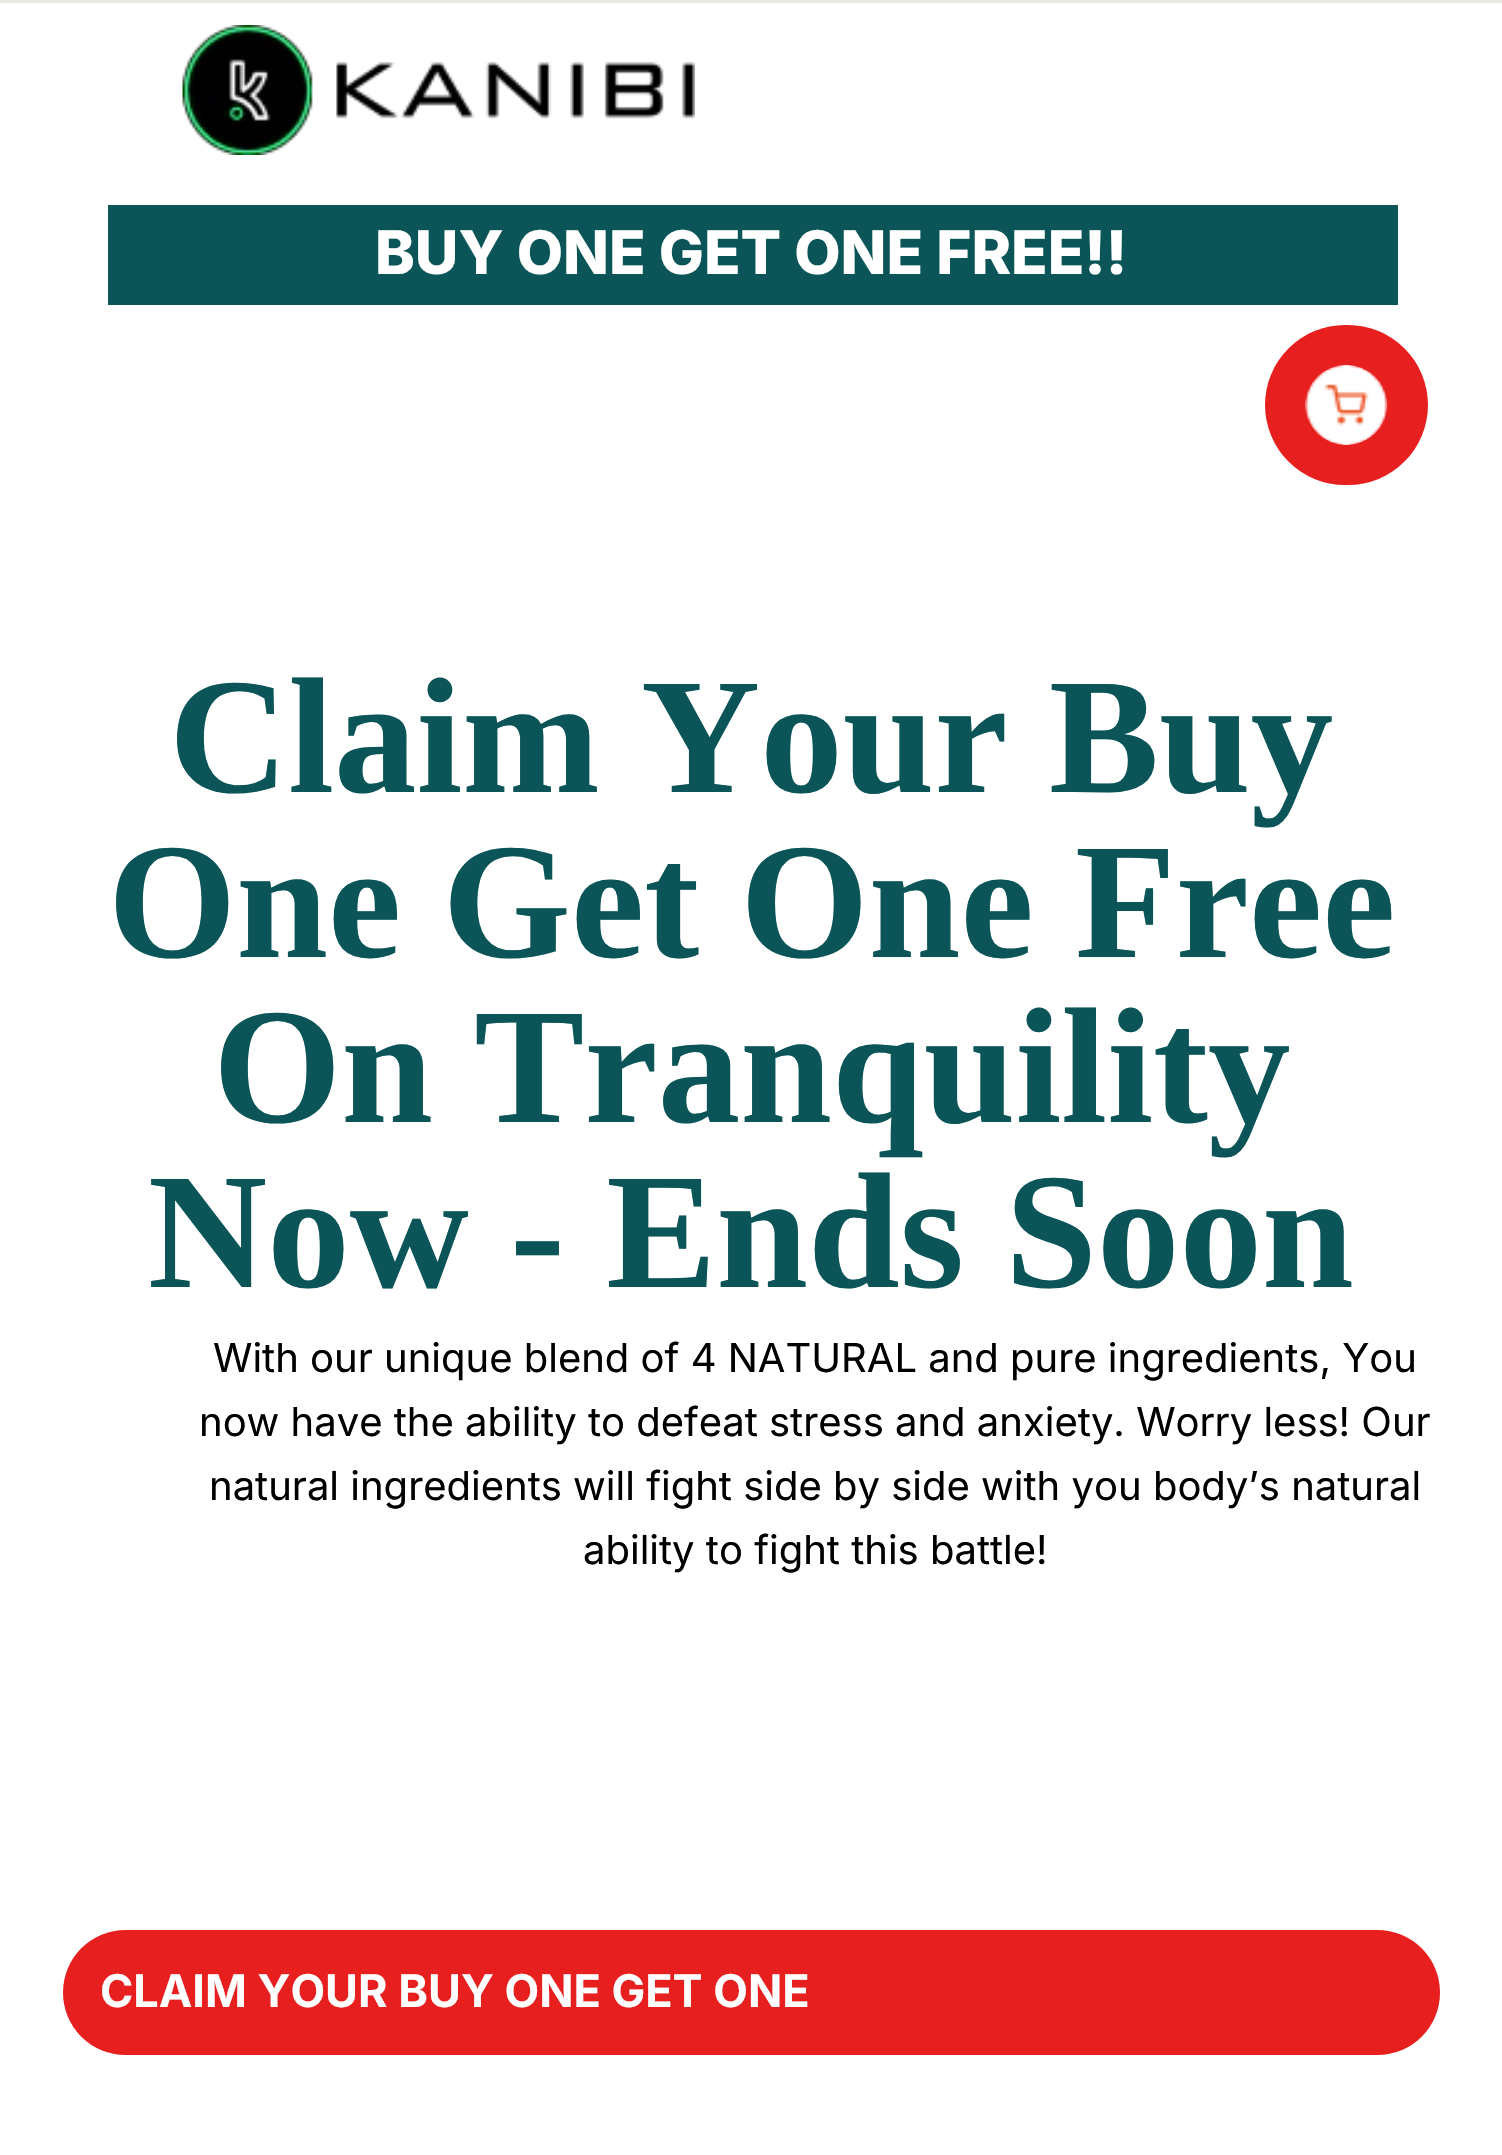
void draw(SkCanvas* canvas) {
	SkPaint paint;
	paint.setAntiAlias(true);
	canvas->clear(0xffffffff);
	paint.setColor(0xffe6eae2);
	canvas->drawRect(SkRect::MakeXYWH(0, 0, 1502, 3), paint);
	canvas->drawImageRect(SkImages::DeferredFromEncodedData(SkData::MakeFromFileName("img1.png")), SkRect::MakeXYWH(182, 25, 513, 130), SkSamplingOptions());
	paint.setColor(0xffe81f1f);
	canvas->drawRoundRect(SkRect::MakeXYWH(1265, 325, 163, 160), 80, 80, paint);
	canvas->drawImageRect(SkImages::DeferredFromEncodedData(SkData::MakeFromFileName("img2.png")), SkRect::MakeXYWH(1305, 365, 83, 80), SkSamplingOptions());
	paint.setColor(0xff0b5558);
	canvas->drawRect(SkRect::MakeXYWH(108, 205, 1290, 100), paint);
	SkFont f1(fontMgr->matchFamilyStyle("Inter", SkFontStyle(800, SkFontStyle::kNormal_Width, SkFontStyle::kUpright_Slant)), 60);
	f1.setSubpixel(true);
	paint.setColor(0xffffffff);
	canvas->drawString("BUY ONE GET ONE FREE!!", 375, 274, f1, paint);
	SkFont f2(fontMgr->matchFamilyStyle("Liberation Serif", SkFontStyle::Bold()), 165);
	f2.setSubpixel(true);
	paint.setColor(0xff0b5558);
	canvas->drawString("Claim Your Buy", 169, 792, f2, paint);
	canvas->drawString("One Get One Free", 108, 957, f2, paint);
	canvas->drawString("On Tranquility", 213, 1122, f2, paint);
	canvas->drawString("Now - Ends Soon", 148, 1287, f2, paint);
	SkFont f3(fontMgr->matchFamilyStyle("Inter", SkFontStyle::Normal()), 40);
	f3.setSubpixel(true);
	paint.setColor(0xff000000);
	canvas->drawString("With our unique blend of 4 NATURAL and pure ingredients, You", 213, 1372, f3, paint);
	canvas->drawString("now have the ability to defeat stress and anxiety. Worry less! Our", 199, 1436, f3, paint);
	canvas->drawString("natural ingredients will fight side by side with you body’s natural", 209, 1500, f3, paint);
	canvas->drawString("ability to fight this battle!", 583, 1564, f3, paint);
	paint.setColor(0xffe81f1f);
	canvas->drawRoundRect(SkRect::MakeXYWH(63, 1930, 1377, 125), 62.5, 62.5, paint);
	SkFont f4(fontMgr->matchFamilyStyle("Inter", SkFontStyle::Bold()), 45);
	f4.setSubpixel(true);
	paint.setColor(0xffffffff);
	canvas->drawString("CLAIM YOUR BUY ONE GET ONE", 100, 2007, f4, paint);
}
